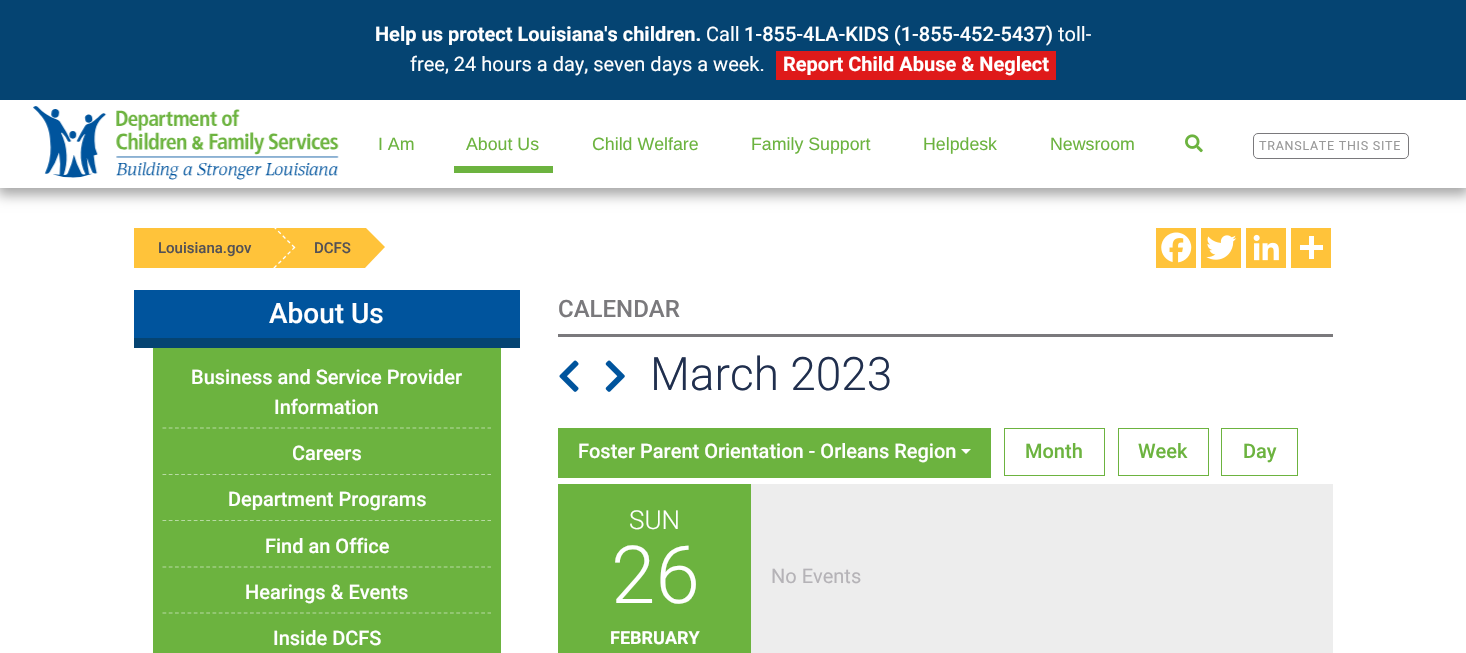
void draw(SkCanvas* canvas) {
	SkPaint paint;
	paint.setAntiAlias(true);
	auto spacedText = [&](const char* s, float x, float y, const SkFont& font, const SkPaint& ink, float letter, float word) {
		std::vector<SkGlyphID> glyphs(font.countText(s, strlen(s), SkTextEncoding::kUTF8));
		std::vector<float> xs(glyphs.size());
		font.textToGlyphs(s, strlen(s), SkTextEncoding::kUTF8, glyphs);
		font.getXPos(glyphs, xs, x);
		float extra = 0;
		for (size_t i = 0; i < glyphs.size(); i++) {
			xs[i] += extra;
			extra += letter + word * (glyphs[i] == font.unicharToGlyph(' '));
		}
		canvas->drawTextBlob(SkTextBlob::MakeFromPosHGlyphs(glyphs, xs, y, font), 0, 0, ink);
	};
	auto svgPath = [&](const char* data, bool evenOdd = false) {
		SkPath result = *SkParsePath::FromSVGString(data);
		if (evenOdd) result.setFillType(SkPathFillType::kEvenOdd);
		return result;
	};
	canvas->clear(0xffffffff);
	paint.setColor(0x59000000);
	paint.setMaskFilter(SkMaskFilter::MakeBlur(kNormal_SkBlurStyle, 6));
	canvas->drawRect(SkRect::MakeXYWH(-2, 3, 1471, 192), paint);
	paint.setMaskFilter(nullptr);
	paint.setColor(0xff054472);
	canvas->drawRect(SkRect::MakeXYWH(0, 0, 1466, 100), paint);
	SkFont f1(fontMgr->matchFamilyStyle("Roboto", SkFontStyle::Bold()), 20);
	f1.setSubpixel(true);
	paint.setColor(0xffffffff);
	canvas->drawString("Help us protect Louisiana's children.", 375, 41, f1, paint);
	SkFont f2(fontMgr->matchFamilyStyle("Roboto", SkFontStyle::Normal()), 20);
	f2.setSubpixel(true);
	canvas->drawString("Call", 706, 41, f2, paint);
	SkFont f3(fontMgr->matchFamilyStyle("Roboto", SkFontStyle(500, SkFontStyle::kNormal_Width, SkFontStyle::kUpright_Slant)), 20);
	f3.setSubpixel(true);
	canvas->drawString("1-855-4LA-KIDS (1-855-452-5437)", 744, 41, f3, paint);
	canvas->drawString("toll-", 1058, 41, f2, paint);
	canvas->drawString("free, 24 hours a day, seven days a week.", 410, 71, f2, paint);
	paint.setColor(0xffdf1a1a);
	canvas->drawRect(SkRect::MakeXYWH(776, 51, 280, 29), paint);
	paint.setColor(0xffffffff);
	canvas->drawString("Report Child Abuse & Neglect", 783, 71, f1, paint);
	canvas->drawRect(SkRect::MakeXYWH(0, 100, 1466, 88), paint);
	canvas->drawImageRect(SkImages::DeferredFromEncodedData(SkData::MakeFromFileName("img1.png")), SkRect::MakeXYWH(33, 106, 306, 74), SkSamplingOptions());
	SkFont f4(fontMgr->matchFamilyStyle("Liberation Sans", SkFontStyle::Normal()), 17.75);
	f4.setSubpixel(true);
	paint.setColor(0xff6cb33f);
	canvas->drawString("I Am", 378, 150, f4, paint);
	canvas->drawString("About Us", 466, 150, f4, paint);
	canvas->drawRect(SkRect::MakeXYWH(454, 166, 99, 7), paint);
	canvas->drawString("Child Welfare", 592, 150, f4, paint);
	canvas->drawString("Family Support", 751, 150, f4, paint);
	canvas->drawString("Helpdesk", 923, 150, f4, paint);
	canvas->drawString("Newsroom", 1050, 150, f4, paint);
	canvas->drawImageRect(SkImages::DeferredFromEncodedData(SkData::MakeFromFileName("img2.png")), SkRect::MakeXYWH(1185, 134, 18, 19), SkSamplingOptions());
	paint.setStroke(true);
	paint.setStrokeWidth(1);
	paint.setColor(0xff7a797c);
	canvas->drawRoundRect(SkRect::MakeXYWH(1253.5, 133.5, 155, 25), 4.5, 4.5, paint);
	SkFont f5(fontMgr->matchFamilyStyle("Roboto", SkFontStyle::Normal()), 12.5);
	f5.setSubpixel(true);
	paint.setStroke(false);
	paint.setColor(0xff999999);
	spacedText("TRANSLATE THIS SITE", 1259, 150, f5, paint, 0.75, 0);
	paint.setColor(0xffffc33a);
	canvas->drawRect(SkRect::MakeXYWH(134, 228, 229, 40), paint);
	SkFont f6(fontMgr->matchFamilyStyle("Roboto", SkFontStyle(500, SkFontStyle::kNormal_Width, SkFontStyle::kUpright_Slant)), 15);
	f6.setSubpixel(true);
	paint.setColor(0xff535155);
	canvas->drawString("Louisiana.gov", 158, 253, f6, paint);
	canvas->save();
	canvas->clipRect(SkRect::MakeXYWH(134, 228, 280, 40));
	paint.setStroke(true);
	paint.setStrokeWidth(1.3);
	paint.setColor(0xffffffff);
	paint.setPathEffect(SkDashPathEffect::Make({{3.75f, 2.81f}}, 0));
	canvas->drawPath(svgPath("M273.5 226.5L295 248"), paint);
	paint.setPathEffect(nullptr);
	canvas->restore();
	paint.setPathEffect(SkDashPathEffect::Make({{3.75f, 2.81f}}, 0));
	canvas->drawPath(svgPath("M295 247L273.5 268.5"), paint);
	paint.setPathEffect(nullptr);
	canvas->save();
	canvas->clipRect(SkRect::MakeXYWH(134, 228, 280, 40));
	paint.setStroke(false);
	paint.setColor(0xffffc33a);
	canvas->drawPath(svgPath("M364 226L385 247L364 269L342 247Z"), paint);
	canvas->restore();
	paint.setColor(0xff535155);
	canvas->drawString("DCFS", 314, 253, f6, paint);
	paint.setColor(0xffffc33a);
	canvas->drawRect(SkRect::MakeXYWH(1156, 228, 40, 40), paint);
	canvas->drawImageRect(SkImages::DeferredFromEncodedData(SkData::MakeFromFileName("img3.png")), SkRect::MakeXYWH(1161, 232, 31, 31), SkSamplingOptions());
	canvas->drawRect(SkRect::MakeXYWH(1201, 228, 40, 40), paint);
	canvas->drawImageRect(SkImages::DeferredFromEncodedData(SkData::MakeFromFileName("img4.png")), SkRect::MakeXYWH(1206, 235, 31, 25), SkSamplingOptions());
	canvas->drawRect(SkRect::MakeXYWH(1246, 228, 40, 40), paint);
	canvas->drawImageRect(SkImages::DeferredFromEncodedData(SkData::MakeFromFileName("img5.png")), SkRect::MakeXYWH(1253, 234, 26, 27), SkSamplingOptions());
	canvas->drawRect(SkRect::MakeXYWH(1291, 228, 40, 40), paint);
	paint.setColor(0xffffffff);
	canvas->drawRect(SkRect::MakeXYWH(1309, 236, 5, 23), paint);
	canvas->drawRect(SkRect::MakeXYWH(1300, 245, 23, 5), paint);
	paint.setColor(0xff00549d);
	canvas->drawRect(SkRect::MakeXYWH(134, 290, 386, 48), paint);
	paint.setColor(0xff054472);
	canvas->drawRect(SkRect::MakeXYWH(134, 338, 386, 10), paint);
	SkFont f7(fontMgr->matchFamilyStyle("Roboto", SkFontStyle(500, SkFontStyle::kNormal_Width, SkFontStyle::kUpright_Slant)), 28);
	f7.setSubpixel(true);
	paint.setColor(0xffffffff);
	canvas->drawString("About Us", 269, 323, f7, paint);
	paint.setColor(0xff6cb33f);
	canvas->drawRect(SkRect::MakeXYWH(153, 348, 348, 305), paint);
	paint.setStroke(true);
	paint.setStrokeWidth(1.2);
	paint.setColor(0xffb8dba3);
	paint.setPathEffect(SkDashPathEffect::Make({{3.75f, 2.5f}}, 0));
	canvas->drawPath(svgPath("M162.5 428H491"), paint);
	paint.setPathEffect(nullptr);
	paint.setStroke(false);
	paint.setColor(0xffffffff);
	canvas->drawString("Business and Service Provider", 191, 384, f3, paint);
	canvas->drawString("Information", 274, 414, f3, paint);
	paint.setStroke(true);
	paint.setColor(0xffb8dba3);
	paint.setPathEffect(SkDashPathEffect::Make({{3.75f, 2.5f}}, 0));
	canvas->drawPath(svgPath("M162.5 474.5H491"), paint);
	paint.setPathEffect(nullptr);
	paint.setStroke(false);
	paint.setColor(0xffffffff);
	canvas->drawString("Careers", 292, 460, f3, paint);
	paint.setStroke(true);
	paint.setColor(0xffb8dba3);
	paint.setPathEffect(SkDashPathEffect::Make({{3.75f, 2.5f}}, 0));
	canvas->drawPath(svgPath("M162.5 520.5H491"), paint);
	paint.setPathEffect(nullptr);
	paint.setStroke(false);
	paint.setColor(0xffffffff);
	canvas->drawString("Department Programs", 228, 506, f3, paint);
	paint.setStroke(true);
	paint.setColor(0xffb8dba3);
	paint.setPathEffect(SkDashPathEffect::Make({{3.75f, 2.5f}}, 0));
	canvas->drawPath(svgPath("M162.5 567H491"), paint);
	paint.setPathEffect(nullptr);
	paint.setStroke(false);
	paint.setColor(0xffffffff);
	canvas->drawString("Find an Office", 265, 553, f3, paint);
	paint.setStroke(true);
	paint.setColor(0xffb8dba3);
	paint.setPathEffect(SkDashPathEffect::Make({{3.75f, 2.5f}}, 0));
	canvas->drawPath(svgPath("M162.5 613H491"), paint);
	paint.setPathEffect(nullptr);
	paint.setStroke(false);
	paint.setColor(0xffffffff);
	canvas->drawString("Hearings & Events", 245, 599, f3, paint);
	canvas->drawString("Inside DCFS", 273, 645, f3, paint);
	paint.setColor(0xff7a797c);
	canvas->drawRect(SkRect::MakeXYWH(558, 334, 775, 3), paint);
	SkFont f8(fontMgr->matchFamilyStyle("Roboto", SkFontStyle(500, SkFontStyle::kNormal_Width, SkFontStyle::kUpright_Slant)), 24);
	f8.setSubpixel(true);
	canvas->drawString("CALENDAR", 558, 317, f8, paint);
	canvas->drawImageRect(SkImages::DeferredFromEncodedData(SkData::MakeFromFileName("img6.png")), SkRect::MakeXYWH(559, 360, 20, 32), SkSamplingOptions());
	canvas->drawImageRect(SkImages::DeferredFromEncodedData(SkData::MakeFromFileName("img7.png")), SkRect::MakeXYWH(605, 360, 20, 32), SkSamplingOptions());
	SkFont f9(fontMgr->matchFamilyStyle("Roboto", SkFontStyle(300, SkFontStyle::kNormal_Width, SkFontStyle::kUpright_Slant)), 46);
	f9.setSubpixel(true);
	paint.setColor(0xff202f4e);
	canvas->drawString("March 2023", 650, 390, f9, paint);
	paint.setColor(0xff6cb33f);
	canvas->drawRect(SkRect::MakeXYWH(558, 428, 433, 50), paint);
	paint.setColor(0xffffffff);
	canvas->drawString("Foster Parent Orientation - Orleans Region", 578, 458, f3, paint);
	canvas->drawPath(svgPath("M961 449H971L966 454Z"), paint);
	paint.setStroke(true);
	paint.setStrokeWidth(1);
	paint.setColor(0xff6cb33f);
	canvas->drawRect(SkRect::MakeXYWH(1004.5, 428.5, 100, 47), paint);
	paint.setStroke(false);
	canvas->drawString("Month", 1025, 458, f3, paint);
	paint.setStroke(true);
	canvas->drawRect(SkRect::MakeXYWH(1118.5, 428.5, 90, 47), paint);
	paint.setStroke(false);
	canvas->drawString("Week", 1138, 458, f3, paint);
	paint.setStroke(true);
	canvas->drawRect(SkRect::MakeXYWH(1221.5, 428.5, 76, 47), paint);
	paint.setStroke(false);
	canvas->drawString("Day", 1243, 458, f3, paint);
	canvas->drawRect(SkRect::MakeXYWH(558, 484, 193, 169), paint);
	SkFont f10(fontMgr->matchFamilyStyle("Roboto", SkFontStyle(300, SkFontStyle::kNormal_Width, SkFontStyle::kUpright_Slant)), 26);
	f10.setSubpixel(true);
	paint.setColor(0xffffffff);
	canvas->drawString("SUN", 629, 529, f10, paint);
	SkFont f11(fontMgr->matchFamilyStyle("Roboto", SkFontStyle(300, SkFontStyle::kNormal_Width, SkFontStyle::kUpright_Slant)), 80);
	f11.setSubpixel(true);
	canvas->drawString("26", 611, 603, f11, paint);
	SkFont f12(fontMgr->matchFamilyStyle("Roboto", SkFontStyle::Bold()), 18);
	f12.setSubpixel(true);
	canvas->drawString("FEBRUARY", 610, 644, f12, paint);
	paint.setColor(0xffededed);
	canvas->drawRect(SkRect::MakeXYWH(751, 484, 582, 169), paint);
	paint.setColor(0xffb5b3b7);
	canvas->drawString("No Events", 771, 583, f2, paint);
}
